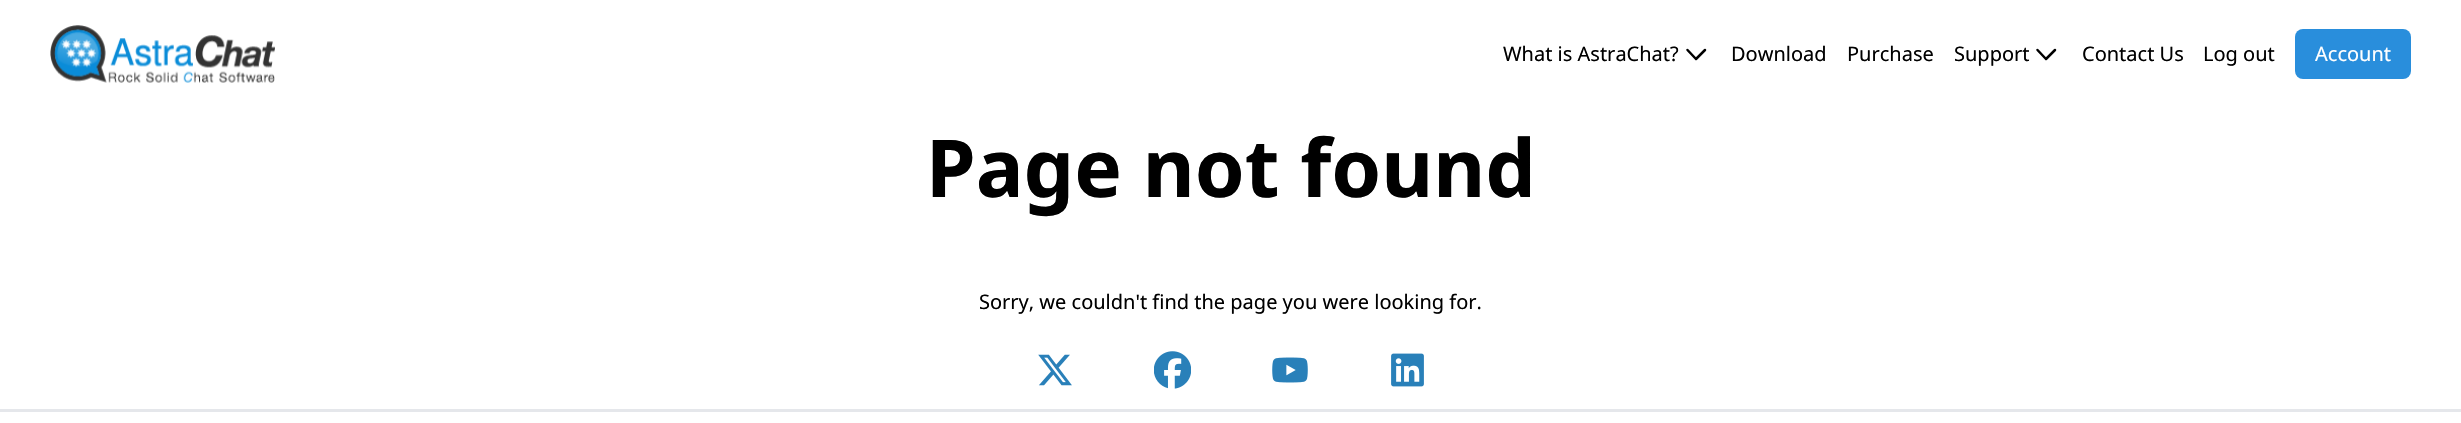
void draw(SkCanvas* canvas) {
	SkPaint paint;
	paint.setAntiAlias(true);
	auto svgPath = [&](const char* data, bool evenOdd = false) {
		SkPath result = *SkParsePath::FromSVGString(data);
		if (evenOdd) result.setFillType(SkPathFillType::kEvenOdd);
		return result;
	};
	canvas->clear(0xffffffff);
	canvas->drawImageRect(SkImages::DeferredFromEncodedData(SkData::MakeFromFileName("img1.png")), SkRect::MakeXYWH(50, 25, 225, 58), SkSamplingOptions());
	SkFont f1(fontMgr->matchFamilyStyle("Noto Sans", SkFontStyle::Normal()), 20);
	f1.setSubpixel(true);
	paint.setColor(0xff000000);
	canvas->drawString("What is AstraChat?", 1503, 61, f1, paint);
	paint.setStroke(true);
	paint.setStrokeWidth(2.5);
	paint.setStrokeCap(SkPaint::kRound_Cap);
	paint.setStrokeJoin(SkPaint::kRound_Join);
	canvas->drawPath(svgPath("M1705 50L1696 59L1687.5 50"), paint);
	paint.setStroke(false);
	canvas->drawString("Download", 1731, 61, f1, paint);
	canvas->drawString("Purchase", 1847, 61, f1, paint);
	canvas->drawString("Support", 1954, 61, f1, paint);
	paint.setStroke(true);
	canvas->drawPath(svgPath("M2055 50L2046 59L2037.5 50"), paint);
	paint.setStroke(false);
	canvas->drawString("Contact Us", 2082, 61, f1, paint);
	canvas->drawString("Log out", 2203, 61, f1, paint);
	paint.setColor(0xff298edc);
	canvas->drawRoundRect(SkRect::MakeXYWH(2295, 29, 116, 50), 8, 8, paint);
	paint.setColor(0xffffffff);
	canvas->drawString("Account", 2315, 61, f1, paint);
	SkFont f2(fontMgr->matchFamilyStyle("Noto Sans", SkFontStyle::Bold()), 80);
	f2.setSubpixel(true);
	paint.setColor(0xff000000);
	canvas->drawString("Page not found", 926, 197, f2, paint);
	canvas->drawString("Sorry, we couldn't find the page you were looking for.", 979, 309, f1, paint);
	canvas->drawImageRect(SkImages::DeferredFromEncodedData(SkData::MakeFromFileName("img2.png")), SkRect::MakeXYWH(1038, 354, 34, 32), SkSamplingOptions());
	canvas->drawImageRect(SkImages::DeferredFromEncodedData(SkData::MakeFromFileName("img3.png")), SkRect::MakeXYWH(1154, 351, 37, 38), SkSamplingOptions());
	canvas->drawImageRect(SkImages::DeferredFromEncodedData(SkData::MakeFromFileName("img4.png")), SkRect::MakeXYWH(1272, 357, 36, 26), SkSamplingOptions());
	canvas->drawImageRect(SkImages::DeferredFromEncodedData(SkData::MakeFromFileName("img5.png")), SkRect::MakeXYWH(1391, 353, 33, 34), SkSamplingOptions());
	paint.setColor(0xffe5e7eb);
	canvas->drawRect(SkRect::MakeXYWH(0, 409, 2461, 3), paint);
}
